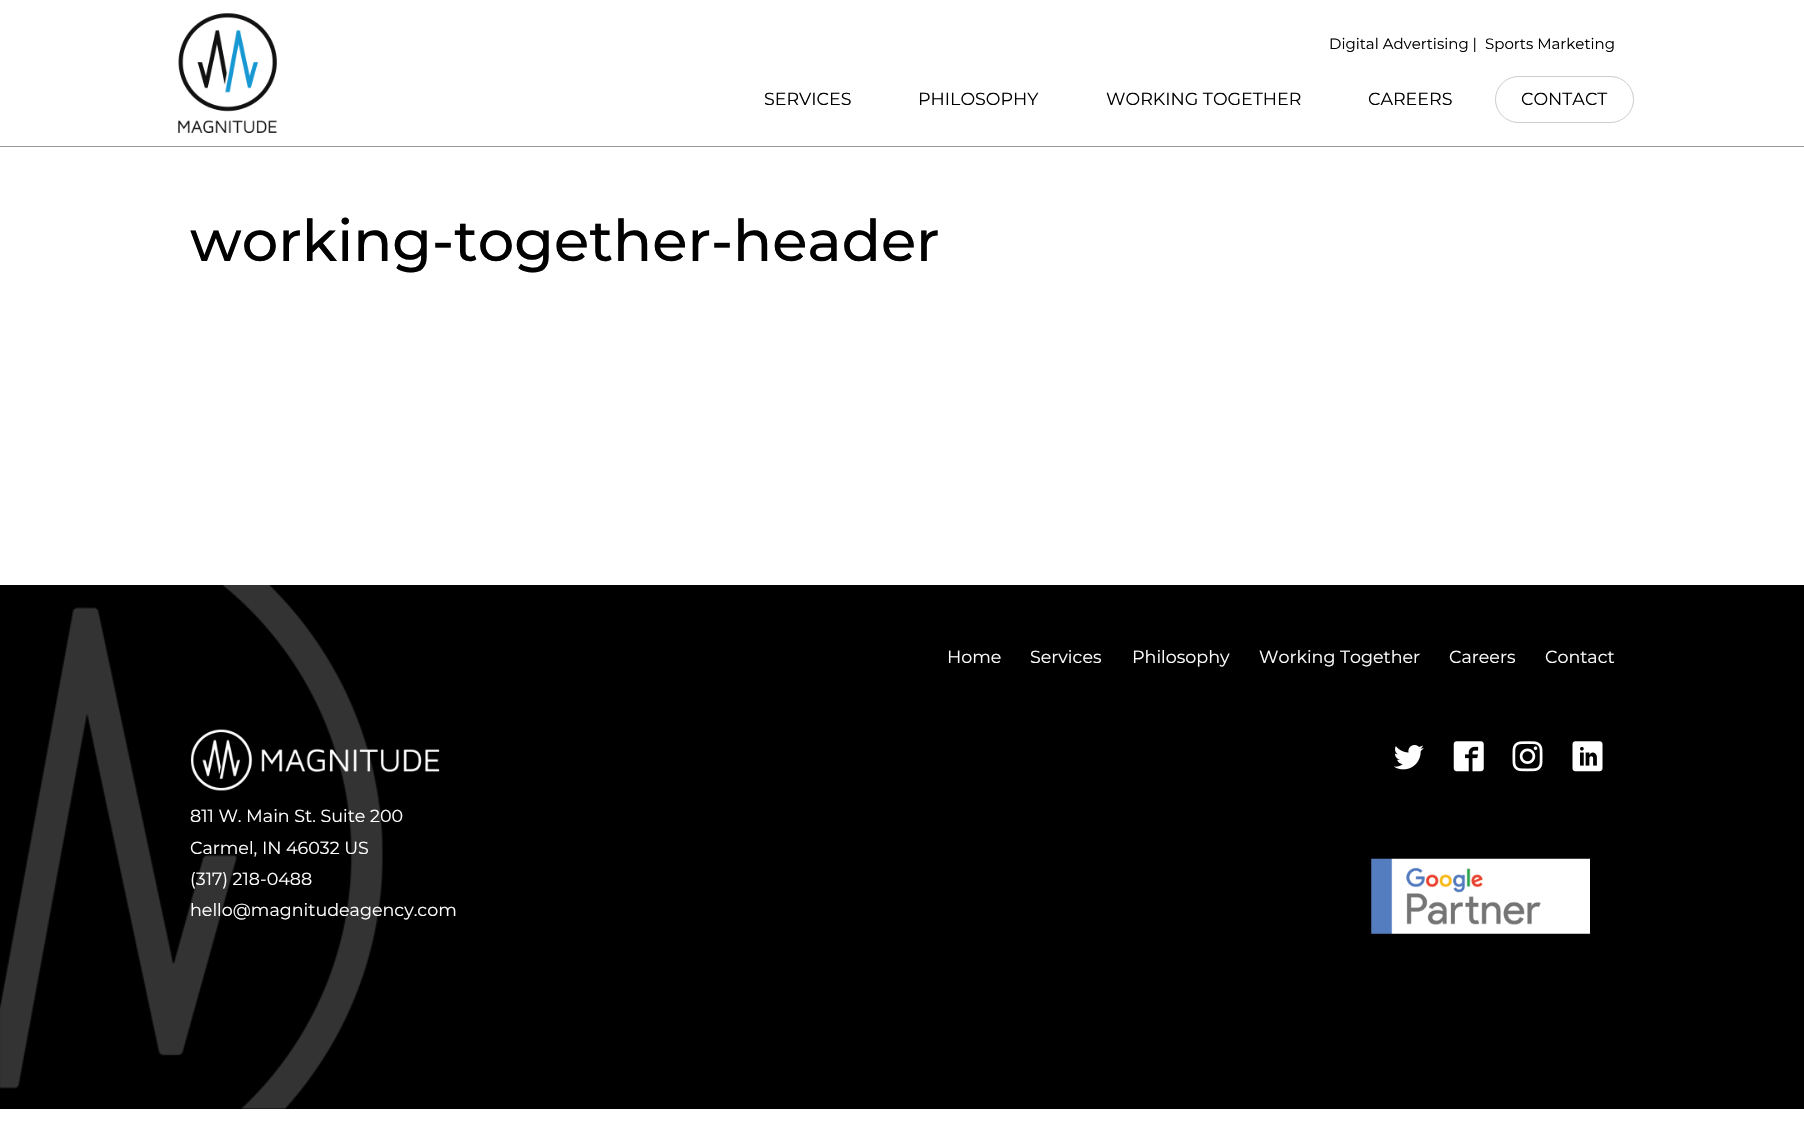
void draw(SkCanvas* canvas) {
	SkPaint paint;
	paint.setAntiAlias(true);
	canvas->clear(0xffffffff);
	paint.setColor(0xff999999);
	canvas->drawRect(SkRect::MakeXYWH(0, 146, 1804, 1), paint);
	canvas->drawImageRect(SkImages::DeferredFromEncodedData(SkData::MakeFromFileName("img1.png")), SkRect::MakeXYWH(178, 13, 99, 120), SkSamplingOptions());
	SkFont f1(fontMgr->matchFamilyStyle("Montserrat", SkFontStyle::Normal()), 15);
	f1.setSubpixel(true);
	paint.setColor(0xff010101);
	canvas->drawString("Digital Advertising |", 1329, 49, f1, paint);
	canvas->drawString("Sports Marketing", 1485, 49, f1, paint);
	SkFont f2(fontMgr->matchFamilyStyle("Montserrat", SkFontStyle::Normal()), 17.5);
	f2.setSubpixel(true);
	canvas->drawString("SERVICES", 764, 105, f2, paint);
	canvas->drawString("PHILOSOPHY", 918, 105, f2, paint);
	canvas->drawString("WORKING TOGETHER", 1106, 105, f2, paint);
	canvas->drawString("CAREERS", 1368, 105, f2, paint);
	paint.setStroke(true);
	paint.setStrokeWidth(1);
	paint.setColor(0xffcccccc);
	canvas->drawRoundRect(SkRect::MakeXYWH(1495.5, 76.5, 138, 46), 23, 23, paint);
	paint.setStroke(false);
	paint.setColor(0xff010101);
	canvas->drawString("CONTACT", 1521, 105, f2, paint);
	SkFont f3(fontMgr->matchFamilyStyle("Montserrat", SkFontStyle(500, SkFontStyle::kNormal_Width, SkFontStyle::kUpright_Slant)), 57.5);
	f3.setSubpixel(true);
	canvas->drawString("working-together-header", 190, 261, f3, paint);
	paint.setColor(0xff000000);
	canvas->drawRect(SkRect::MakeXYWH(0, 585, 1804, 524), paint);
	canvas->drawImageRect(SkImages::DeferredFromEncodedData(SkData::MakeFromFileName("img2.png")), SkRect::MakeXYWH(0, 585, 383, 524), SkSamplingOptions());
	paint.setColor(0xffffffff);
	canvas->drawString("Home", 947, 663, f2, paint);
	canvas->drawString("Services", 1030, 663, f2, paint);
	canvas->drawString("Philosophy", 1132, 663, f2, paint);
	canvas->drawString("Working Together", 1259, 663, f2, paint);
	canvas->drawString("Careers", 1449, 663, f2, paint);
	canvas->drawString("Contact", 1545, 663, f2, paint);
	canvas->drawImageRect(SkImages::DeferredFromEncodedData(SkData::MakeFromFileName("img3.png")), SkRect::MakeXYWH(1394, 745, 30, 25), SkSamplingOptions());
	canvas->drawImageRect(SkImages::DeferredFromEncodedData(SkData::MakeFromFileName("img4.png")), SkRect::MakeXYWH(1453, 741, 31, 31), SkSamplingOptions());
	canvas->drawImageRect(SkImages::DeferredFromEncodedData(SkData::MakeFromFileName("img5.png")), SkRect::MakeXYWH(1512, 741, 31, 31), SkSamplingOptions());
	canvas->drawImageRect(SkImages::DeferredFromEncodedData(SkData::MakeFromFileName("img6.png")), SkRect::MakeXYWH(1572, 741, 31, 31), SkSamplingOptions());
	canvas->drawImageRect(SkImages::DeferredFromEncodedData(SkData::MakeFromFileName("img7.png")), SkRect::MakeXYWH(190, 729, 250, 62), SkSamplingOptions());
	canvas->drawString("811 W. Main St. Suite 200", 190, 822, f2, paint);
	canvas->drawString("Carmel, IN 46032 US", 190, 854, f2, paint);
	canvas->drawString("(317) 218-0488", 190, 885, f2, paint);
	canvas->drawString("hello@magnitudeagency.com", 190, 916, f2, paint);
	canvas->drawImageRect(SkImages::DeferredFromEncodedData(SkData::MakeFromFileName("img8.png")), SkRect::MakeXYWH(1371, 858, 219, 76), SkSamplingOptions());
}
